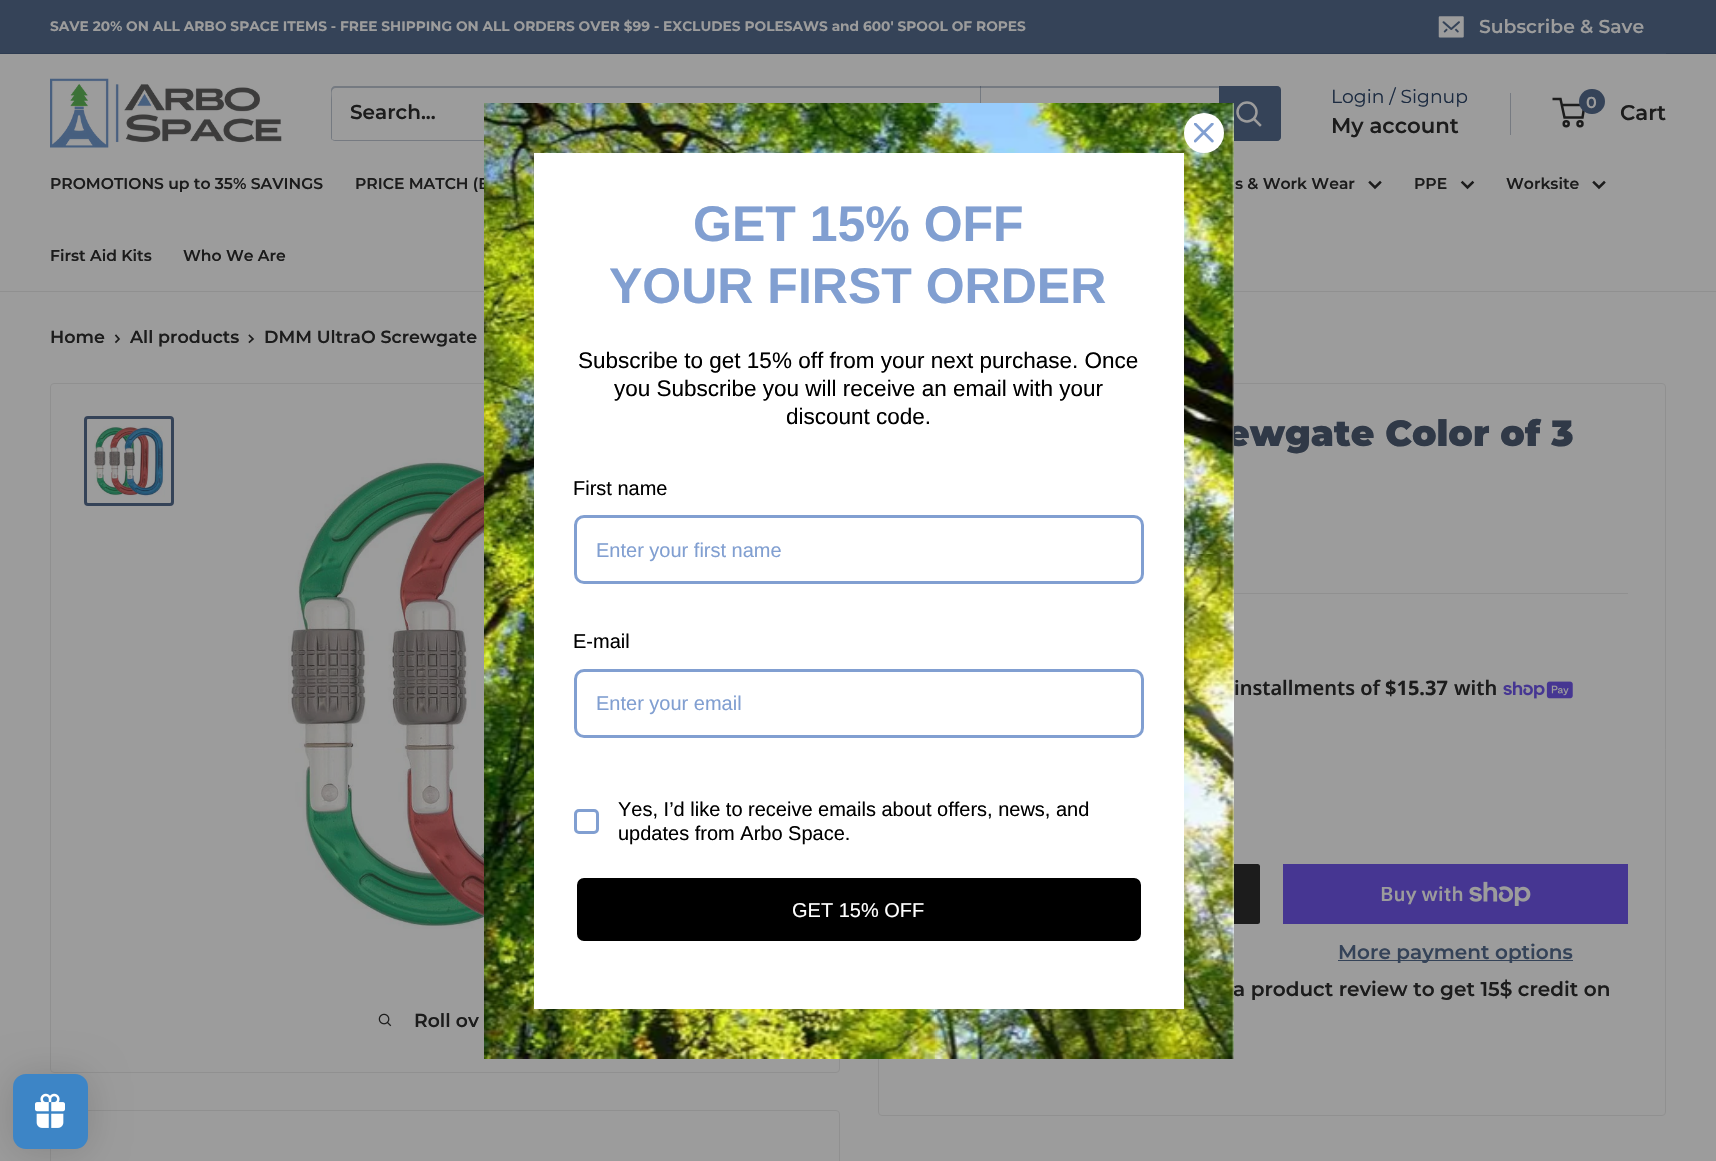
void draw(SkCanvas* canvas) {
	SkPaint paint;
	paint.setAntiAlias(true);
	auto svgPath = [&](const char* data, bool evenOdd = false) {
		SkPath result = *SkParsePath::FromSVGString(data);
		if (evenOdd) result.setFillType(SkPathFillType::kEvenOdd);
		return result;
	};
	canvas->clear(0xff9c9c9c);
	paint.setColor(0xff354358);
	canvas->drawRect(SkRect::MakeXYWH(0, 0, 1716, 53), paint);
	paint.setColor(0xff2e3c51);
	canvas->drawRect(SkRect::MakeXYWH(0, 53, 1716, 1), paint);
	SkFont f1(fontMgr->matchFamilyStyle("Montserrat", SkFontStyle::Bold()), 13.75);
	f1.setSubpixel(true);
	paint.setColor(0xff9c9c9c);
	canvas->drawString("SAVE 20% ON ALL ARBO SPACE ITEMS - FREE SHIPPING ON ALL ORDERS OVER $99 - EXCLUDES POLESAWS and 600' SPOOL OF ROPES", 50, 31, f1, paint);
	paint.setColor(0xff354358);
	canvas->drawRect(SkRect::MakeXYWH(1420, 53, 246, 1), paint);
	canvas->drawImageRect(SkImages::DeferredFromEncodedData(SkData::MakeFromFileName("img1.png")), SkRect::MakeXYWH(1438, 16, 26, 22), SkSamplingOptions());
	SkFont f2(fontMgr->matchFamilyStyle("Montserrat", SkFontStyle(600, SkFontStyle::kNormal_Width, SkFontStyle::kUpright_Slant)), 18.75);
	f2.setSubpixel(true);
	paint.setColor(0xff9c9c9c);
	canvas->drawString("Subscribe & Save", 1479, 33, f2, paint);
	canvas->drawImageRect(SkImages::DeferredFromEncodedData(SkData::MakeFromFileName("img2.png")), SkRect::MakeXYWH(50, 78, 232, 70), SkSamplingOptions());
	paint.setColor(0xff767a81);
	canvas->drawPath(svgPath("M332 139C332 140 334 141 335 141H1277C1279 141 1281 139 1281 137V90C1281 89 1280 87 1279 87L1280 89V136C1280 138 1278 140 1276 140H334Z"), paint);
	paint.setColor(0x4d1c2b41);
	canvas->drawPath(svgPath("M336 88H1281C1280 87 1279 86 1277 86H335C333 86 331 88 331 90V137C331 138 331 139 332 140V99C332 95 330 88 336 88Z"), paint);
	SkFont f3(fontMgr->matchFamilyStyle("Montserrat", SkFontStyle(600, SkFontStyle::kNormal_Width, SkFontStyle::kUpright_Slant)), 20);
	f3.setSubpixel(true);
	paint.setColor(0xff1c1c1c);
	canvas->drawString("Search...", 350, 119, f3, paint);
	paint.setColor(0x4d1c2b41);
	canvas->drawRect(SkRect::MakeXYWH(980, 86, 1, 17), paint);
	paint.setColor(0xff354358);
	canvas->drawPath(svgPath("M1219 86H1277C1279 86 1281 88 1281 90V137C1281 139 1279 141 1277 141H1219Z"), paint);
	paint.setStroke(true);
	paint.setStrokeWidth(2.5);
	paint.setStrokeCap(SkPaint::kSquare_Cap);
	paint.setColor(0xff9c9c9c);
	canvas->drawPath(svgPath("M1260 125L1254 119"), paint);
	paint.setStrokeCap(SkPaint::kButt_Cap);
	canvas->drawCircle(1247, 112, 9.5, paint);
	SkFont f4(fontMgr->matchFamilyStyle("Montserrat", SkFontStyle::Normal()), 18.75);
	f4.setSubpixel(true);
	paint.setStroke(false);
	paint.setColor(0xff1c2b41);
	canvas->drawString("Login / Signup", 1331, 103, f4, paint);
	paint.setColor(0xff767a81);
	canvas->drawRect(SkRect::MakeXYWH(1510, 93, 1, 42), paint);
	SkFont f5(fontMgr->matchFamilyStyle("Montserrat", SkFontStyle(600, SkFontStyle::kNormal_Width, SkFontStyle::kUpright_Slant)), 21.25);
	f5.setSubpixel(true);
	paint.setColor(0xff1c1c1c);
	canvas->drawString("My account", 1331, 133, f5, paint);
	paint.setStroke(true);
	canvas->drawCircle(1566.2, 123.8, 2.5, paint);
	canvas->drawCircle(1580, 123.8, 2.5, paint);
	canvas->drawPath(svgPath("M1561.5 105H1584.5L1582.5 117.5H1564.5L1560.5 99H1552.5"), paint);
	paint.setStroke(false);
	paint.setColor(0xff354358);
	canvas->drawRoundRect(SkRect::MakeXYWH(1579, 89, 26, 25), 12.5, 12.5, paint);
	SkFont f6(fontMgr->matchFamilyStyle("Montserrat", SkFontStyle(600, SkFontStyle::kNormal_Width, SkFontStyle::kUpright_Slant)), 16);
	f6.setSubpixel(true);
	paint.setColor(0xff9c9c9c);
	canvas->drawString("0", 1586, 108, f6, paint);
	paint.setColor(0xff1c1c1c);
	canvas->drawString("Cart", 1620, 120, f5, paint);
	paint.setColor(0xff909090);
	canvas->drawRect(SkRect::MakeXYWH(0, 291, 1716, 1), paint);
	SkFont f7(fontMgr->matchFamilyStyle("Montserrat", SkFontStyle(600, SkFontStyle::kNormal_Width, SkFontStyle::kUpright_Slant)), 15.6);
	f7.setSubpixel(true);
	paint.setColor(0xff1c1c1c);
	canvas->drawString("PROMOTIONS up to 35% SAVINGS", 50, 189, f7, paint);
	canvas->drawString("PRICE MATCH (B", 355, 189, f7, paint);
	canvas->drawString("s & Work Wear", 1235, 189, f7, paint);
	paint.setStroke(true);
	paint.setStrokeCap(SkPaint::kSquare_Cap);
	canvas->drawPath(svgPath("M1380 182.5L1375 187.5L1370 182.5"), paint);
	paint.setStroke(false);
	canvas->drawString("PPE", 1414, 189, f7, paint);
	paint.setStroke(true);
	canvas->drawPath(svgPath("M1472.5 182.5L1467.5 187.5L1462.5 182.5"), paint);
	paint.setStroke(false);
	canvas->drawString("Worksite", 1506, 189, f7, paint);
	paint.setStroke(true);
	canvas->drawPath(svgPath("M1604 182.5L1599 187.5L1594 182.5"), paint);
	paint.setStroke(false);
	canvas->drawString("First Aid Kits", 50, 261, f7, paint);
	canvas->drawString("Who We Are", 183, 261, f7, paint);
	paint.setStroke(true);
	paint.setStrokeWidth(1);
	paint.setStrokeCap(SkPaint::kButt_Cap);
	paint.setColor(0xff909090);
	canvas->drawRoundRect(SkRect::MakeXYWH(878.5, 383.5, 787, 732), 3.5, 3.5, paint);
	SkFont f8(fontMgr->matchFamilyStyle("Montserrat", SkFontStyle(900, SkFontStyle::kNormal_Width, SkFontStyle::kUpright_Slant)), 36.25);
	f8.setSubpixel(true);
	paint.setStroke(false);
	paint.setColor(0xff303947);
	canvas->drawString("ewgate Color of 3", 1226, 446, f8, paint);
	paint.setColor(0xff1c1c1c);
	canvas->drawRoundRect(SkRect::MakeXYWH(916, 864, 344, 60), 2.5, 2.5, paint);
	canvas->drawString("a product review to get 15$ credit on", 1233, 996, f3, paint);
	paint.setColor(0xffffffff);
	canvas->drawRect(SkRect::MakeXYWH(1232, 103, 2, 956), paint);
	paint.setStroke(true);
	paint.setColor(0xff909090);
	canvas->drawRoundRect(SkRect::MakeXYWH(50.5, 383.5, 789, 689), 3.5, 3.5, paint);
	canvas->drawImageRect(SkImages::DeferredFromEncodedData(SkData::MakeFromFileName("img4.png")), SkRect::MakeXYWH(484, 103, 750, 956), SkSamplingOptions());
	paint.setStroke(false);
	paint.setColor(0xffffffff);
	canvas->drawCircle(1204, 133, 20, paint);
	canvas->drawImageRect(SkImages::DeferredFromEncodedData(SkData::MakeFromFileName("img3.png")), SkRect::MakeXYWH(1194, 123, 20, 20), SkSamplingOptions());
	canvas->drawRect(SkRect::MakeXYWH(534, 153, 650, 856), paint);
	SkFont f9(fontMgr->matchFamilyStyle("Liberation Sans", SkFontStyle::Bold()), 50);
	f9.setSubpixel(true);
	paint.setColor(0xff819fd1);
	canvas->drawString("GET 15% OFF", 693, 241, f9, paint);
	canvas->drawString("YOUR FIRST ORDER", 609, 303, f9, paint);
	SkFont f10(fontMgr->matchFamilyStyle("Liberation Sans", SkFontStyle::Normal()), 22.5);
	f10.setSubpixel(true);
	paint.setColor(0xff000000);
	canvas->drawString("Subscribe to get 15% off from your next purchase. Once", 578, 368, f10, paint);
	canvas->drawString("you Subscribe you will receive an email with your", 614, 396, f10, paint);
	canvas->drawString("discount code.", 786, 424, f10, paint);
	SkFont f11(fontMgr->matchFamilyStyle("Liberation Sans", SkFontStyle::Normal()), 20);
	f11.setSubpixel(true);
	canvas->drawString("First name", 573, 495, f11, paint);
	paint.setStroke(true);
	paint.setStrokeWidth(3);
	paint.setColor(0xff819fd1);
	canvas->drawRoundRect(SkRect::MakeXYWH(575.5, 516.5, 567, 66), 8.5, 8.5, paint);
	paint.setStroke(false);
	canvas->drawString("Enter your first name", 596, 557, f11, paint);
	paint.setColor(0xff000000);
	canvas->drawString("E-mail", 573, 648, f11, paint);
	paint.setStroke(true);
	paint.setColor(0xff819fd1);
	canvas->drawRoundRect(SkRect::MakeXYWH(575.5, 670.5, 567, 66), 8.5, 8.5, paint);
	paint.setStroke(false);
	canvas->drawString("Enter your email", 596, 710, f11, paint);
	paint.setStroke(true);
	canvas->drawRoundRect(SkRect::MakeXYWH(575.5, 810.5, 22, 22), 3.5, 3.5, paint);
	paint.setStroke(false);
	paint.setColor(0xff000000);
	canvas->drawString("Yes, I’d like to receive emails about offers, news, and", 618, 816, f11, paint);
	canvas->drawString("updates from Arbo Space.", 618, 840, f11, paint);
	canvas->drawRoundRect(SkRect::MakeXYWH(575.5, 876.5, 567, 66), 8.5, 8.5, paint);
	paint.setStroke(true);
	paint.setColor(0xffffffff);
	canvas->drawRoundRect(SkRect::MakeXYWH(575.5, 876.5, 567, 66), 8.5, 8.5, paint);
	paint.setStroke(false);
	canvas->drawString("GET 15% OFF", 792, 917, f11, paint);
	SkFont f12(fontMgr->matchFamilyStyle("Montserrat", SkFontStyle(600, SkFontStyle::kNormal_Width, SkFontStyle::kUpright_Slant)), 17.5);
	f12.setSubpixel(true);
	paint.setColor(0xff1c1c1c);
	canvas->drawString("Home", 50, 343, f12, paint);
	paint.setStroke(true);
	paint.setStrokeWidth(1.7);
	paint.setStrokeCap(SkPaint::kSquare_Cap);
	canvas->drawPath(svgPath("M116 335.5L119 339L116 342"), paint);
	paint.setStroke(false);
	canvas->drawString("All products", 130, 343, f12, paint);
	paint.setStroke(true);
	canvas->drawPath(svgPath("M249.5 335.5L253 339L249.5 342"), paint);
	paint.setStroke(false);
	canvas->drawString("DMM UltraO Screwgate", 264, 343, f12, paint);
	paint.setColor(0xff909090);
	canvas->drawRect(SkRect::MakeXYWH(1234, 593, 394, 1), paint);
	SkFont f13(fontMgr->matchFamilyStyle("Noto Sans", SkFontStyle(600, SkFontStyle::kNormal_Width, SkFontStyle::kUpright_Slant)), 20);
	f13.setSubpixel(true);
	paint.setColor(0xff1c1c1c);
	canvas->drawString("installments of", 1234, 695, f13, paint);
	SkFont f14(fontMgr->matchFamilyStyle("Noto Sans", SkFontStyle::Bold()), 20);
	f14.setSubpixel(true);
	canvas->drawString("$15.37", 1385, 695, f14, paint);
	canvas->drawString("with", 1454, 695, f13, paint);
	canvas->drawImageRect(SkImages::DeferredFromEncodedData(SkData::MakeFromFileName("img5.png")), SkRect::MakeXYWH(1503, 681, 70, 18), SkSamplingOptions());
	paint.setColor(0xff463692);
	canvas->drawRect(SkRect::MakeXYWH(1283, 864, 345, 60), paint);
	SkFont f15(fontMgr->matchFamilyStyle("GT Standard", SkFontStyle(600, SkFontStyle::kNormal_Width, SkFontStyle::kUpright_Slant)), 20);
	f15.setSubpixel(true);
	paint.setColor(0xff9c9c9c);
	canvas->drawString("Buy with", 1380, 901, f15, paint);
	canvas->drawImageRect(SkImages::DeferredFromEncodedData(SkData::MakeFromFileName("img6.png")), SkRect::MakeXYWH(1469, 881, 62, 25), SkSamplingOptions());
	paint.setColor(0xff354358);
	canvas->drawRect(SkRect::MakeXYWH(1338, 960, 235, 1), paint);
	canvas->drawString("More payment options", 1338, 959, f3, paint);
	paint.setStroke(true);
	paint.setStrokeWidth(3);
	paint.setStrokeCap(SkPaint::kButt_Cap);
	canvas->drawRoundRect(SkRect::MakeXYWH(85.5, 417.5, 87, 87), 2.5, 2.5, paint);
	canvas->drawImageRect(SkImages::DeferredFromEncodedData(SkData::MakeFromFileName("img7.png")), SkRect::MakeXYWH(94, 426, 71, 71), SkSamplingOptions());
	canvas->drawImageRect(SkImages::DeferredFromEncodedData(SkData::MakeFromFileName("img8.png")), SkRect::MakeXYWH(288, 458, 196, 476), SkSamplingOptions());
	canvas->drawImageRect(SkImages::DeferredFromEncodedData(SkData::MakeFromFileName("img9.png")), SkRect::MakeXYWH(378, 1013, 14, 14), SkSamplingOptions());
	paint.setStroke(false);
	paint.setColor(0xff1c1c1c);
	canvas->drawString("Roll ov", 414, 1027, f2, paint);
	paint.setStroke(true);
	paint.setStrokeWidth(1);
	paint.setColor(0xff909090);
	canvas->drawRoundRect(SkRect::MakeXYWH(50.5, 1110.5, 789, 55), 3.5, 3.5, paint);
	paint.setStroke(false);
	paint.setColor(0x26000000);
	paint.setMaskFilter(SkMaskFilter::MakeBlur(kNormal_SkBlurStyle, 19));
	canvas->drawRoundRect(SkRect::MakeXYWH(13, 1076, 75, 75), 13, 13, paint);
	paint.setMaskFilter(nullptr);
	paint.setColor(0xff3d85c6);
	canvas->drawRoundRect(SkRect::MakeXYWH(13, 1074, 75, 75), 13, 13, paint);
	canvas->drawImageRect(SkImages::DeferredFromEncodedData(SkData::MakeFromFileName("img10.png")), SkRect::MakeXYWH(35, 1093, 30, 35), SkSamplingOptions());
}
